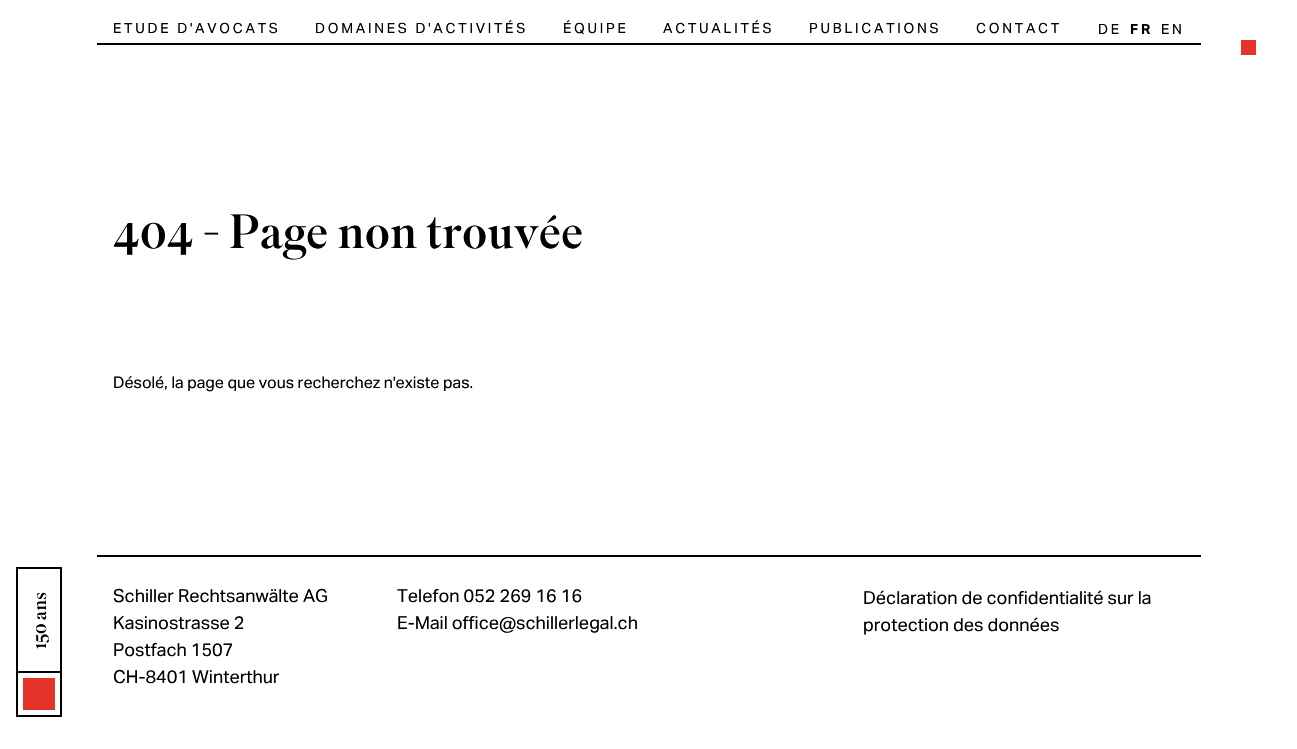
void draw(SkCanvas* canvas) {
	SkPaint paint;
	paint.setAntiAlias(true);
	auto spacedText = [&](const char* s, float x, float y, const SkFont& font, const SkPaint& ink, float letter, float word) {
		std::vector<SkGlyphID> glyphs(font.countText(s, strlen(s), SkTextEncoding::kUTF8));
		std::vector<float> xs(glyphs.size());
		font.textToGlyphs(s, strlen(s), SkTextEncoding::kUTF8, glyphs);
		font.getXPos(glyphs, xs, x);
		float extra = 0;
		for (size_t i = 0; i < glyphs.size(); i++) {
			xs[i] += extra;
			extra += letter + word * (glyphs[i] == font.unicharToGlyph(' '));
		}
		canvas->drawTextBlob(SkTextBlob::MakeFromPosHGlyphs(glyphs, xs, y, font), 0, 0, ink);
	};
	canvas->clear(0xffffffff);
	SkFont f1(fontMgr->matchFamilyStyle("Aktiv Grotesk", SkFontStyle::Normal()), 14);
	f1.setSubpixel(true);
	paint.setColor(0xff000000);
	spacedText("ETUDE D'AVOCATS", 113, 33, f1, paint, 2.75, 0);
	spacedText("DOMAINES D'ACTIVITÉS", 315, 33, f1, paint, 2.75, 0);
	spacedText("ÉQUIPE", 563, 33, f1, paint, 2.75, 0);
	spacedText("ACTUALITÉS", 663, 33, f1, paint, 2.75, 0);
	spacedText("PUBLICATIONS", 809, 33, f1, paint, 2.75, 0);
	spacedText("CONTACT", 976, 33, f1, paint, 2.75, 0);
	spacedText("DE", 1098, 34, f1, paint, 2.75, 0);
	SkFont f2(fontMgr->matchFamilyStyle("Aktiv Grotesk", SkFontStyle::Bold()), 14);
	f2.setSubpixel(true);
	spacedText("FR", 1130, 34, f2, paint, 2.75, 0);
	spacedText("EN", 1161, 34, f1, paint, 2.75, 0);
	canvas->drawRect(SkRect::MakeXYWH(97, 43, 1104, 2), paint);
	paint.setColor(0xffe63329);
	canvas->drawRect(SkRect::MakeXYWH(1241, 40, 15, 15), paint);
	SkFont f3(fontMgr->matchFamilyStyle("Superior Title", SkFontStyle::Normal()), 48);
	f3.setSubpixel(true);
	paint.setColor(0xff000000);
	canvas->drawString("404 - Page non trouvée", 113, 248, f3, paint);
	SkFont f4(fontMgr->matchFamilyStyle("Aktiv Grotesk", SkFontStyle::Normal()), 16);
	f4.setSubpixel(true);
	canvas->drawString("Désolé, la page que vous recherchez n'existe pas.", 113, 388, f4, paint);
	paint.setStroke(true);
	paint.setStrokeWidth(2);
	canvas->drawRect(SkRect::MakeXYWH(17, 568, 44, 148), paint);
	paint.setStroke(false);
	canvas->drawRect(SkRect::MakeXYWH(18, 671, 42, 2), paint);
	SkFont f5(fontMgr->matchFamilyStyle("Superior Title", SkFontStyle::Normal()), 19);
	f5.setSubpixel(true);
	canvas->save();
	canvas->rotate(-90, 46, 649);
	canvas->drawString("150 ans", 46, 649, f5, paint);
	canvas->restore();
	paint.setColor(0xffe63329);
	canvas->drawRect(SkRect::MakeXYWH(23, 678, 32, 32), paint);
	paint.setColor(0xff000000);
	canvas->drawRect(SkRect::MakeXYWH(97, 555, 1104, 2), paint);
	SkFont f6(fontMgr->matchFamilyStyle("Aktiv Grotesk", SkFontStyle::Normal()), 18);
	f6.setSubpixel(true);
	canvas->drawString("Schiller Rechtsanwälte AG", 113, 602, f6, paint);
	canvas->drawString("Kasinostrasse 2", 113, 629, f6, paint);
	canvas->drawString("Postfach 1507", 113, 656, f6, paint);
	canvas->drawString("CH-8401 Winterthur", 113, 683, f6, paint);
	canvas->drawString("Telefon 052 269 16 16", 397, 602, f6, paint);
	canvas->drawString("E-Mail office@schillerlegal.ch", 397, 629, f6, paint);
	canvas->drawString("Déclaration de confidentialité sur la", 863, 604, f6, paint);
	canvas->drawString("protection des données", 863, 631, f6, paint);
}
